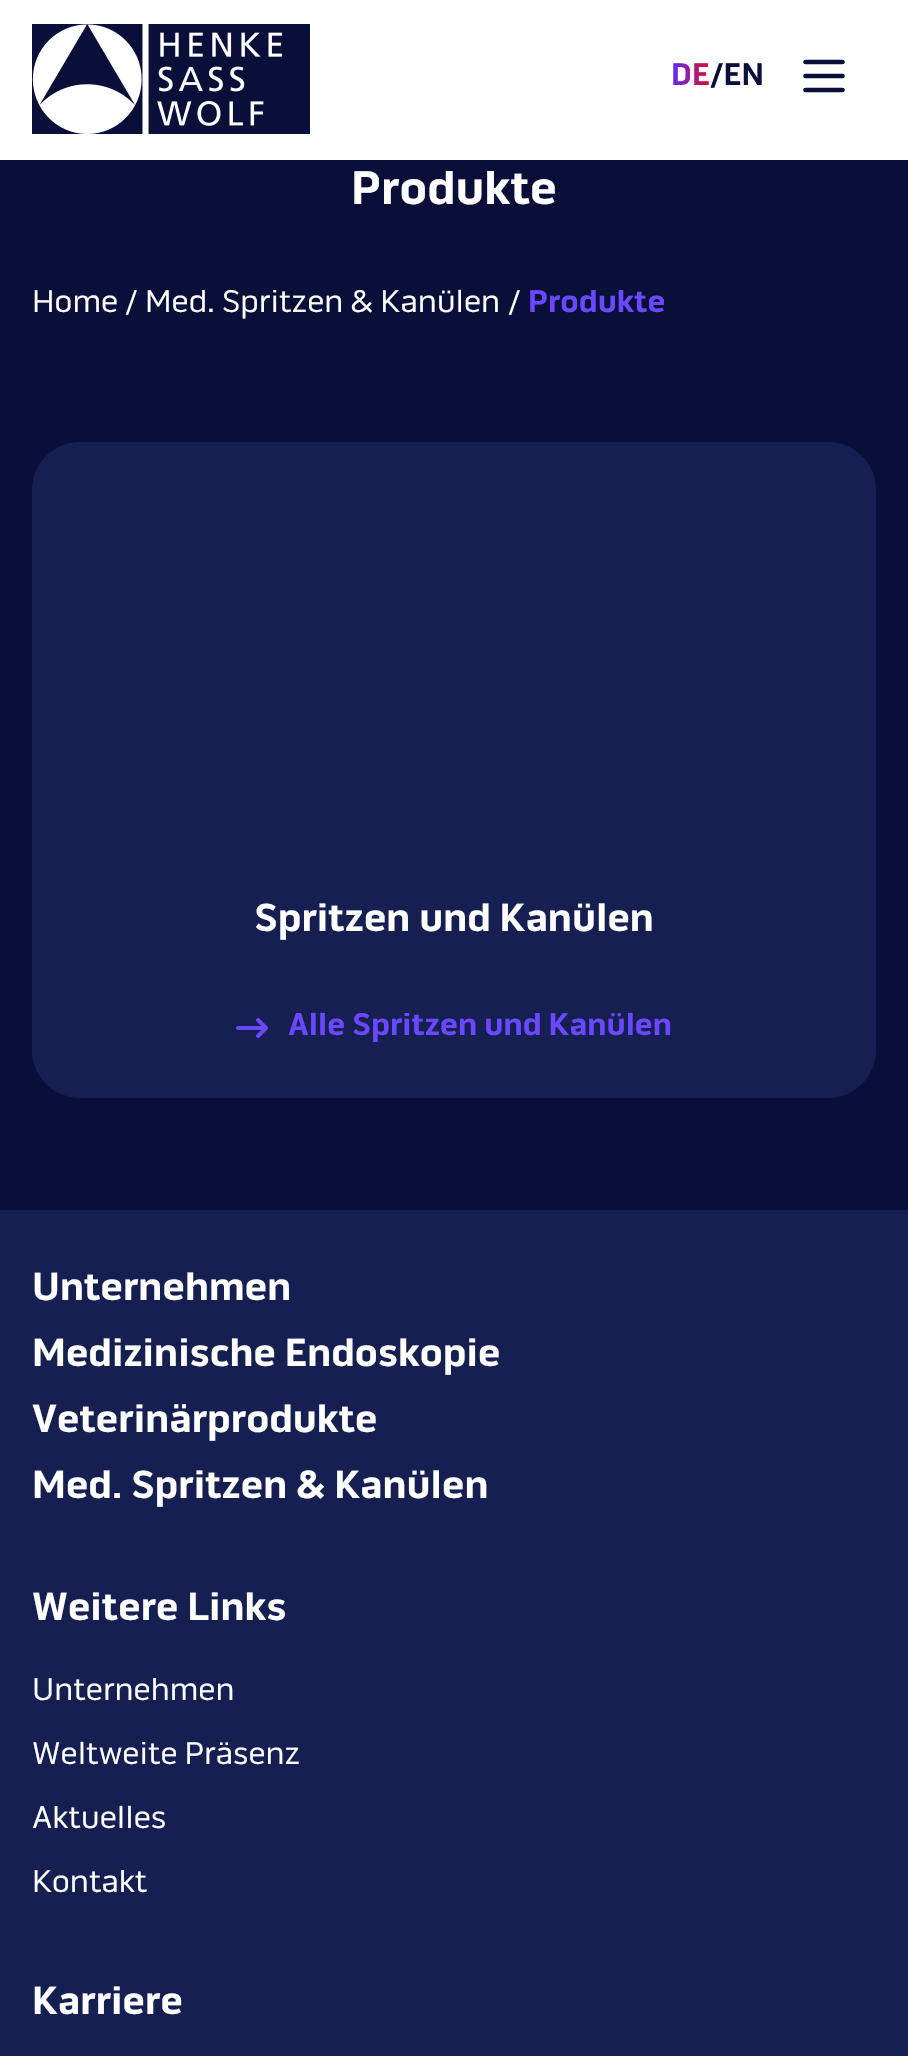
void draw(SkCanvas* canvas) {
	SkPaint paint;
	paint.setAntiAlias(true);
	auto svgPath = [&](const char* data, bool evenOdd = false) {
		SkPath result = *SkParsePath::FromSVGString(data);
		if (evenOdd) result.setFillType(SkPathFillType::kEvenOdd);
		return result;
	};
	canvas->clear(0xff090f39);
	paint.setColor(0xffffffff);
	canvas->drawRect(SkRect::MakeXYWH(0, 0, 908, 160), paint);
	canvas->drawImageRect(SkImages::DeferredFromEncodedData(SkData::MakeFromFileName("img1.png")), SkRect::MakeXYWH(32, 24, 278, 110), SkSamplingOptions());
	SkFont f1(fontMgr->matchFamilyStyle("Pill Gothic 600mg", SkFontStyle::Bold()), 32);
	f1.setSubpixel(true);
	{
		const SkColor colors[] = {0xff572fff, 0xffe1082e};
		const float stops[] = {0, 1};
		const SkPoint ends[] = {{671, 77}, {710, 77}};
		paint.setShader(SkGradientShader::MakeLinear(ends, colors, stops, 2, SkTileMode::kClamp));
		paint.setAlpha(255);
	}
	canvas->drawString("DE", 671, 85, f1, paint);
	paint.setShader(nullptr);
	paint.setColor(0xff090f39);
	canvas->drawString("/EN", 710, 85, f1, paint);
	paint.setStroke(true);
	paint.setStrokeWidth(4.7);
	paint.setStrokeCap(SkPaint::kRound_Cap);
	paint.setStrokeJoin(SkPaint::kRound_Join);
	canvas->drawPath(svgPath("M805.5 62H842.5M805.5 76H842.5M805.5 90H842.5"), paint);
	SkFont f2(fontMgr->matchFamilyStyle("Pill Gothic 600mg", SkFontStyle::Bold()), 48);
	f2.setSubpixel(true);
	paint.setStroke(false);
	paint.setColor(0xffffffff);
	canvas->drawString("Produkte", 351, 204, f2, paint);
	SkFont f3(fontMgr->matchFamilyStyle("Pill Gothic 600mg", SkFontStyle::Normal()), 32);
	f3.setSubpixel(true);
	canvas->drawString("Home", 32, 312, f3, paint);
	canvas->drawString("/", 125, 312, f3, paint);
	canvas->drawString("Med. Spritzen & Kanülen", 145, 312, f3, paint);
	canvas->drawString("/", 508, 312, f3, paint);
	paint.setColor(0xff6b48ff);
	canvas->drawString("Produkte", 528, 312, f1, paint);
	paint.setColor(0xff151f51);
	canvas->drawRoundRect(SkRect::MakeXYWH(32, 442, 844, 656), 48, 48, paint);
	SkFont f4(fontMgr->matchFamilyStyle("Pill Gothic 600mg", SkFontStyle::Bold()), 40);
	f4.setSubpixel(true);
	paint.setColor(0xffffffff);
	canvas->drawString("Spritzen und Kanülen", 254, 931, f4, paint);
	canvas->drawImageRect(SkImages::DeferredFromEncodedData(SkData::MakeFromFileName("img2.png")), SkRect::MakeXYWH(236, 1018, 32, 20), SkSamplingOptions());
	paint.setColor(0xff6b48ff);
	canvas->drawString("Alle Spritzen und Kanülen", 288, 1035, f1, paint);
	paint.setColor(0xff151f51);
	canvas->drawRect(SkRect::MakeXYWH(0, 1210, 908, 846), paint);
	paint.setColor(0xffffffff);
	canvas->drawString("Unternehmen", 32, 1300, f4, paint);
	canvas->drawString("Medizinische Endoskopie", 32, 1366, f4, paint);
	canvas->drawString("Veterinärprodukte", 32, 1432, f4, paint);
	canvas->drawString("Med. Spritzen & Kanülen", 32, 1498, f4, paint);
	canvas->drawString("Weitere Links", 32, 1620, f4, paint);
	canvas->drawString("Unternehmen", 32, 1700, f3, paint);
	canvas->drawString("Weltweite Präsenz", 32, 1764, f3, paint);
	canvas->drawString("Aktuelles", 32, 1828, f3, paint);
	canvas->drawString("Kontakt", 32, 1892, f3, paint);
	canvas->drawString("Karriere", 32, 2014, f4, paint);
}
